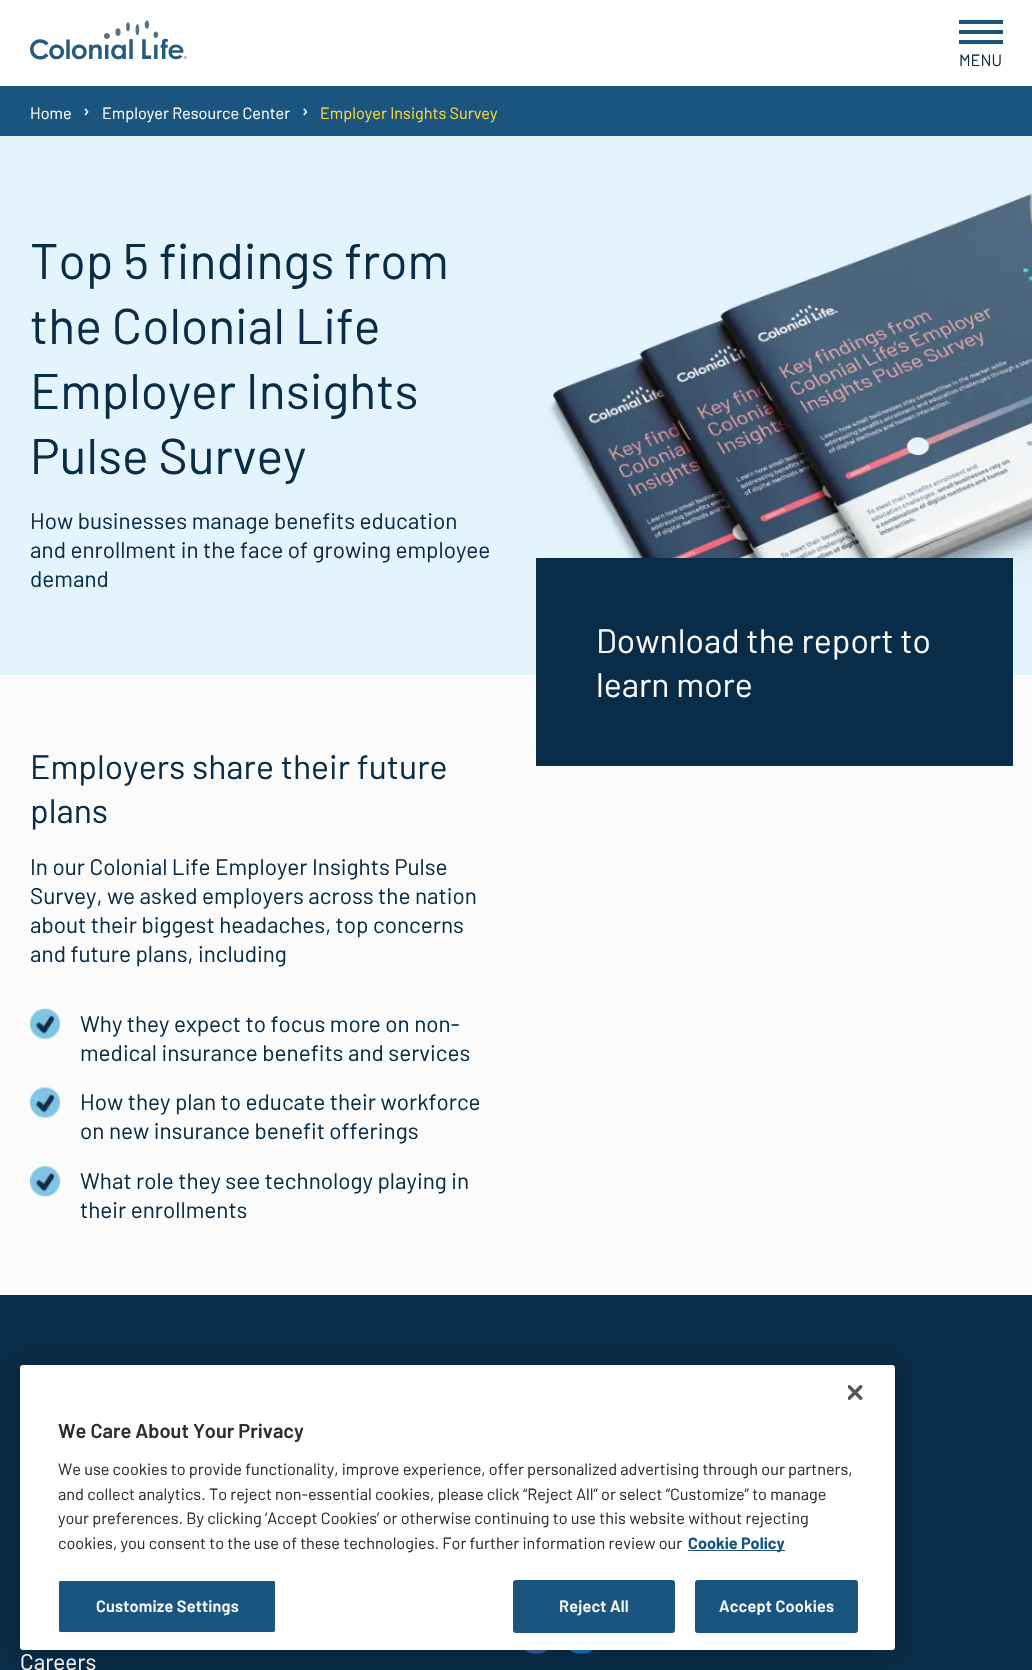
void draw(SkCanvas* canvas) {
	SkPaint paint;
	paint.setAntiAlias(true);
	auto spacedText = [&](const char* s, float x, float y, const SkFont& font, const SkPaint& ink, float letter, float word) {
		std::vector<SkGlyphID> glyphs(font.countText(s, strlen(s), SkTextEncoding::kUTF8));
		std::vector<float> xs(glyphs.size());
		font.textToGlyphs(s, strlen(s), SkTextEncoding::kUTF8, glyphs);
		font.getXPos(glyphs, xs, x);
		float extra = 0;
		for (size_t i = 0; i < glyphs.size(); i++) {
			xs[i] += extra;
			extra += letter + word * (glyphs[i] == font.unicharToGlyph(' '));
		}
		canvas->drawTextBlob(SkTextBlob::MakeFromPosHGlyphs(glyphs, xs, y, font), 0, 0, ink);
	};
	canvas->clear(0xffffffff);
	canvas->drawImageRect(SkImages::DeferredFromEncodedData(SkData::MakeFromFileName("img1.png")), SkRect::MakeXYWH(30, 20, 157, 40), SkSamplingOptions());
	paint.setColor(0xff19557f);
	canvas->drawRect(SkRect::MakeXYWH(959, 30, 44, 4), paint);
	canvas->drawRect(SkRect::MakeXYWH(959, 20, 44, 4), paint);
	canvas->drawRect(SkRect::MakeXYWH(959, 40, 44, 4), paint);
	SkFont f1(fontMgr->matchFamilyStyle("Barlow", SkFontStyle::Normal()), 16.25);
	f1.setSubpixel(true);
	paint.setColor(0xff092c48);
	canvas->drawString("MENU", 959, 66, f1, paint);
	paint.setColor(0xff19557f);
	canvas->drawRect(SkRect::MakeXYWH(0, 86, 1032, 50), paint);
	paint.setColor(0xfffbfbfb);
	canvas->drawString("Home", 30, 119, f1, paint);
	canvas->drawImageRect(SkImages::DeferredFromEncodedData(SkData::MakeFromFileName("img2.png")), SkRect::MakeXYWH(84, 108, 5, 8), SkSamplingOptions());
	canvas->drawString("Employer Resource Center", 102, 119, f1, paint);
	canvas->drawImageRect(SkImages::DeferredFromEncodedData(SkData::MakeFromFileName("img3.png")), SkRect::MakeXYWH(303, 108, 5, 8), SkSamplingOptions());
	paint.setColor(0xffffd63e);
	canvas->drawString("Employer Insights Survey", 320, 119, f1, paint);
	paint.setColor(0xfffbfbfb);
	canvas->drawRect(SkRect::MakeXYWH(0, 136, 1032, 1159), paint);
	canvas->drawImageRect(SkImages::DeferredFromEncodedData(SkData::MakeFromFileName("img4.png")), SkRect::MakeXYWH(0, 136, 1032, 539), SkSamplingOptions());
	SkFont f2(fontMgr->matchFamilyStyle("Barlow", SkFontStyle::Normal()), 50);
	f2.setSubpixel(true);
	paint.setColor(0xff092c48);
	canvas->drawString("Top 5 findings from", 30, 279, f2, paint);
	canvas->drawString("the Colonial Life", 30, 344, f2, paint);
	canvas->drawString("Employer Insights", 30, 409, f2, paint);
	canvas->drawString("Pulse Survey", 30, 474, f2, paint);
	SkFont f3(fontMgr->matchFamilyStyle("Barlow", SkFontStyle::Normal()), 22.5);
	f3.setSubpixel(true);
	canvas->drawString("How businesses manage benefits education", 30, 529, f3, paint);
	canvas->drawString("and enrollment in the face of growing employee", 30, 558, f3, paint);
	canvas->drawString("demand", 30, 587, f3, paint);
	canvas->drawRect(SkRect::MakeXYWH(536, 558, 477, 208), paint);
	SkFont f4(fontMgr->matchFamilyStyle("Barlow", SkFontStyle::Normal()), 33.75);
	f4.setSubpixel(true);
	paint.setColor(0xfffbfbfb);
	canvas->drawString("Download the report to", 596, 653, f4, paint);
	canvas->drawString("learn more", 596, 697, f4, paint);
	paint.setColor(0xff092c48);
	canvas->drawString("Employers share their future", 30, 779, f4, paint);
	canvas->drawString("plans", 30, 823, f4, paint);
	canvas->drawString("In our Colonial Life Employer Insights Pulse", 30, 875, f3, paint);
	canvas->drawString("Survey, we asked employers across the nation", 30, 904, f3, paint);
	canvas->drawString("about their biggest headaches, top concerns", 30, 933, f3, paint);
	canvas->drawString("and future plans, including", 30, 962, f3, paint);
	canvas->drawImageRect(SkImages::DeferredFromEncodedData(SkData::MakeFromFileName("img5.png")), SkRect::MakeXYWH(30, 1008, 30, 31), SkSamplingOptions());
	canvas->drawString("Why they expect to focus more on non-", 80, 1032, f3, paint);
	canvas->drawString("medical insurance benefits and services", 80, 1061, f3, paint);
	canvas->drawImageRect(SkImages::DeferredFromEncodedData(SkData::MakeFromFileName("img6.png")), SkRect::MakeXYWH(30, 1087, 30, 31), SkSamplingOptions());
	canvas->drawString("How they plan to educate their workforce", 80, 1110, f3, paint);
	canvas->drawString("on new insurance benefit offerings", 80, 1139, f3, paint);
	canvas->drawImageRect(SkImages::DeferredFromEncodedData(SkData::MakeFromFileName("img7.png")), SkRect::MakeXYWH(30, 1166, 30, 31), SkSamplingOptions());
	canvas->drawString("What role they see technology playing in", 80, 1189, f3, paint);
	canvas->drawString("their enrollments", 80, 1218, f3, paint);
	canvas->drawRect(SkRect::MakeXYWH(0, 1295, 1032, 375), paint);
	canvas->drawImageRect(SkImages::DeferredFromEncodedData(SkData::MakeFromFileName("img8.png")), SkRect::MakeXYWH(524, 1650, 24, 4), SkSamplingOptions());
	canvas->drawImageRect(SkImages::DeferredFromEncodedData(SkData::MakeFromFileName("img9.png")), SkRect::MakeXYWH(569, 1650, 24, 4), SkSamplingOptions());
	paint.setColor(0xfffbfbfb);
	canvas->drawString("Careers", 20, 1670, f3, paint);
	paint.setColor(0x33000000);
	paint.setMaskFilter(SkMaskFilter::MakeBlur(kNormal_SkBlurStyle, 11));
	canvas->drawRoundRect(SkRect::MakeXYWH(20, 1365, 875, 285), 3, 3, paint);
	paint.setMaskFilter(nullptr);
	paint.setColor(0xffffffff);
	canvas->drawRoundRect(SkRect::MakeXYWH(20, 1365, 875, 285), 3, 3, paint);
	canvas->drawImageRect(SkImages::DeferredFromEncodedData(SkData::MakeFromFileName("img10.png")), SkRect::MakeXYWH(848, 1385, 15, 15), SkSamplingOptions());
	SkFont f5(fontMgr->matchFamilyStyle("Barlow", SkFontStyle(600, SkFontStyle::kNormal_Width, SkFontStyle::kUpright_Slant)), 20);
	f5.setSubpixel(true);
	paint.setColor(0xff2e2e2e);
	canvas->drawString("We Care About Your Privacy", 58, 1438, f5, paint);
	canvas->drawString("We use cookies to provide functionality, improve experience, offer personalized advertising through our partners,", 58, 1475, f1, paint);
	canvas->drawString("and collect analytics. To reject non-essential cookies, please click “Reject All” or select “Customize” to manage", 58, 1500, f1, paint);
	canvas->drawString("your preferences. By clicking ‘Accept Cookies’ or otherwise continuing to use this website without rejecting", 58, 1524, f1, paint);
	canvas->drawString("cookies, you consent to the use of these technologies. For further information review our", 58, 1549, f1, paint);
	paint.setColor(0xff19557f);
	canvas->drawRect(SkRect::MakeXYWH(688, 1550, 97, 1), paint);
	SkFont f6(fontMgr->matchFamilyStyle("Barlow", SkFontStyle::Bold()), 16.25);
	f6.setSubpixel(true);
	canvas->drawString("Cookie Policy", 688, 1549, f6, paint);
	canvas->drawRoundRect(SkRect::MakeXYWH(58.5, 1580.5, 217, 52), 2, 2, paint);
	paint.setStroke(true);
	paint.setStrokeWidth(1);
	paint.setColor(0xffffffff);
	canvas->drawRoundRect(SkRect::MakeXYWH(58.5, 1580.5, 217, 52), 2, 2, paint);
	SkFont f7(fontMgr->matchFamilyStyle("Barlow", SkFontStyle(600, SkFontStyle::kNormal_Width, SkFontStyle::kUpright_Slant)), 16.25);
	f7.setSubpixel(true);
	paint.setStroke(false);
	paint.setColor(0xfffbfbfb);
	spacedText("Customize Settings", 96, 1612, f7, paint, 0.2, 0);
	paint.setColor(0xff19557f);
	canvas->drawRoundRect(SkRect::MakeXYWH(513.5, 1580.5, 161, 52), 2, 2, paint);
	paint.setStroke(true);
	canvas->drawRoundRect(SkRect::MakeXYWH(513.5, 1580.5, 161, 52), 2, 2, paint);
	paint.setStroke(false);
	paint.setColor(0xfffbfbfb);
	spacedText("Reject All", 559, 1612, f7, paint, 0.2, 0);
	paint.setColor(0xff19557f);
	canvas->drawRoundRect(SkRect::MakeXYWH(695.5, 1580.5, 162, 52), 2, 2, paint);
	paint.setStroke(true);
	canvas->drawRoundRect(SkRect::MakeXYWH(695.5, 1580.5, 162, 52), 2, 2, paint);
	paint.setStroke(false);
	paint.setColor(0xfffbfbfb);
	spacedText("Accept Cookies", 719, 1612, f7, paint, 0.2, 0);
}
